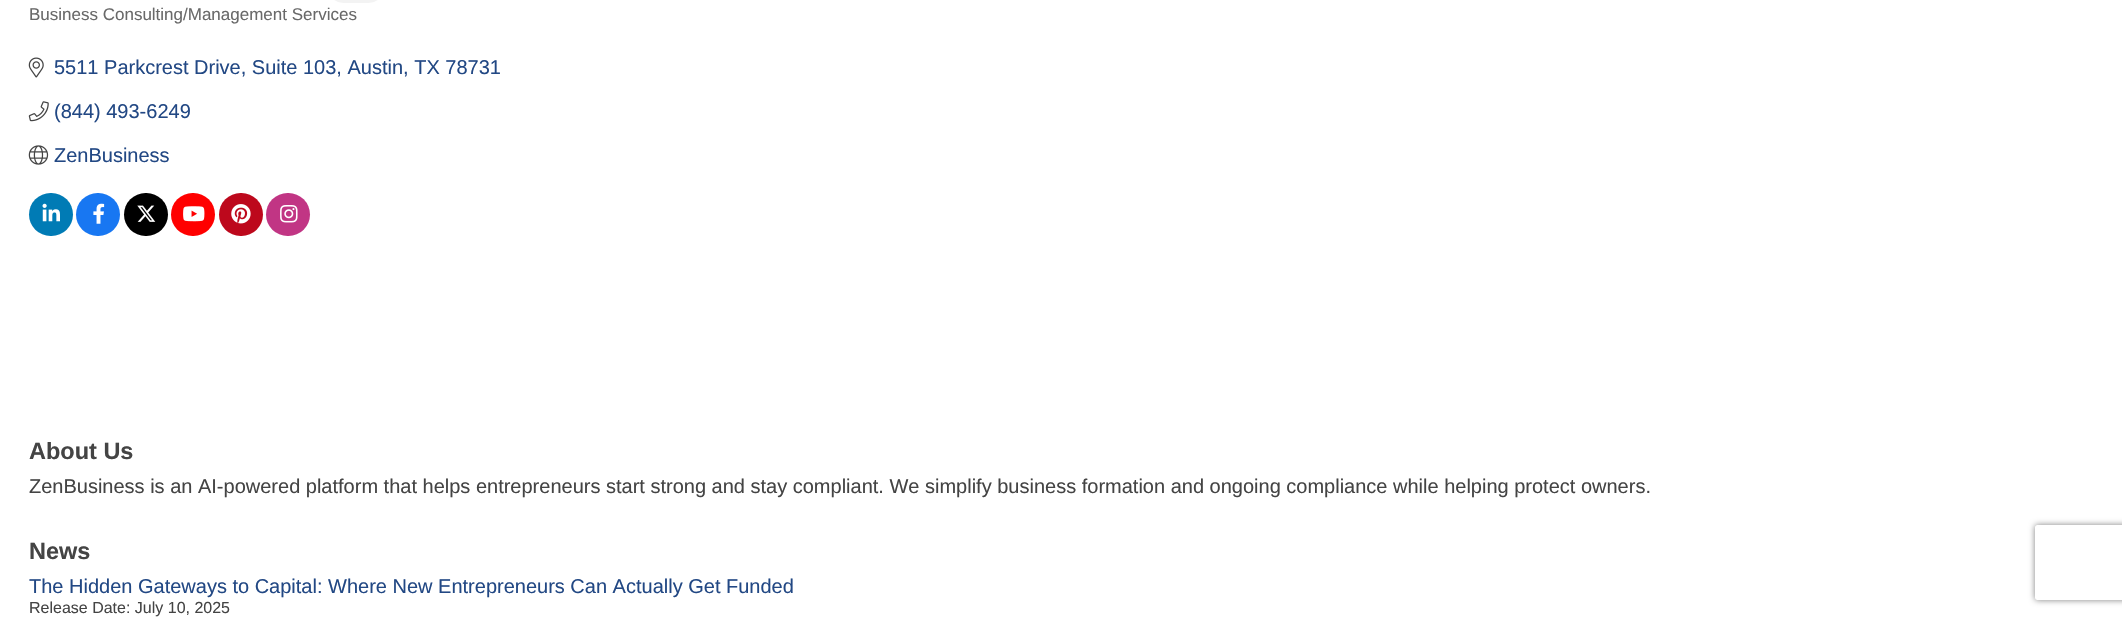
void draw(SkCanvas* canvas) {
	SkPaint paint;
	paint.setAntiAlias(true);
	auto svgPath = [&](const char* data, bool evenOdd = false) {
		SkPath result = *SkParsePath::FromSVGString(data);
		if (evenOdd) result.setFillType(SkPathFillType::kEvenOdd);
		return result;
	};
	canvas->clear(0xffffffff);
	paint.setColor(0xfff3f3f3);
	canvas->drawRoundRect(SkRect::MakeXYWH(328, -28, 56, 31), 28, 28, paint);
	SkFont f1(fontMgr->matchFamilyStyle("Liberation Sans", SkFontStyle::Normal()), 17);
	f1.setSubpixel(true);
	paint.setColor(0xff696969);
	canvas->drawString("Business Consulting/Management Services", 29, 20, f1, paint);
	canvas->drawImageRect(SkImages::DeferredFromEncodedData(SkData::MakeFromFileName("img1.png")), SkRect::MakeXYWH(28, 57, 16, 21), SkSamplingOptions());
	SkFont f2(fontMgr->matchFamilyStyle("Liberation Sans", SkFontStyle::Normal()), 20);
	f2.setSubpixel(true);
	paint.setColor(0xff224884);
	canvas->drawString("5511 Parkcrest Drive, Suite 103, Austin, TX 78731", 54, 74, f2, paint);
	canvas->drawImageRect(SkImages::DeferredFromEncodedData(SkData::MakeFromFileName("img2.png")), SkRect::MakeXYWH(28, 101, 21, 21), SkSamplingOptions());
	canvas->drawString("(844) 493-6249", 54, 118, f2, paint);
	canvas->drawImageRect(SkImages::DeferredFromEncodedData(SkData::MakeFromFileName("img3.png")), SkRect::MakeXYWH(28, 145, 21, 20), SkSamplingOptions());
	canvas->drawString("ZenBusiness", 54, 162, f2, paint);
	paint.setColor(0xff007bb5);
	canvas->drawRoundRect(SkRect::MakeXYWH(29, 193, 44, 43), 21.5, 21.5, paint);
	canvas->drawImageRect(SkImages::DeferredFromEncodedData(SkData::MakeFromFileName("img4.png")), SkRect::MakeXYWH(42, 203, 18, 19), SkSamplingOptions());
	paint.setColor(0xff1877f2);
	canvas->drawRoundRect(SkRect::MakeXYWH(76, 193, 44, 43), 21.5, 21.5, paint);
	canvas->drawImageRect(SkImages::DeferredFromEncodedData(SkData::MakeFromFileName("img5.png")), SkRect::MakeXYWH(93, 203, 12, 21), SkSamplingOptions());
	paint.setColor(0xff000000);
	canvas->drawRoundRect(SkRect::MakeXYWH(124, 193, 44, 43), 21.5, 21.5, paint);
	canvas->drawImageRect(SkImages::DeferredFromEncodedData(SkData::MakeFromFileName("img6.png")), SkRect::MakeXYWH(137, 205, 19, 17), SkSamplingOptions());
	paint.setColor(0xffff0000);
	canvas->drawRoundRect(SkRect::MakeXYWH(171, 193, 44, 43), 21.5, 21.5, paint);
	canvas->drawImageRect(SkImages::DeferredFromEncodedData(SkData::MakeFromFileName("img7.png")), SkRect::MakeXYWH(183, 206, 22, 16), SkSamplingOptions());
	paint.setColor(0xffbd081c);
	canvas->drawRoundRect(SkRect::MakeXYWH(219, 193, 44, 43), 21.5, 21.5, paint);
	canvas->drawImageRect(SkImages::DeferredFromEncodedData(SkData::MakeFromFileName("img8.png")), SkRect::MakeXYWH(231, 204, 20, 20), SkSamplingOptions());
	paint.setColor(0xffc13584);
	canvas->drawRoundRect(SkRect::MakeXYWH(266, 193, 44, 43), 21.5, 21.5, paint);
	canvas->drawImageRect(SkImages::DeferredFromEncodedData(SkData::MakeFromFileName("img9.png")), SkRect::MakeXYWH(280, 205, 18, 18), SkSamplingOptions());
	SkFont f3(fontMgr->matchFamilyStyle("Liberation Sans", SkFontStyle::Bold()), 23.5);
	f3.setSubpixel(true);
	paint.setColor(0xff444444);
	canvas->drawString("About Us", 29, 459, f3, paint);
	canvas->drawString("ZenBusiness is an AI-powered platform that helps entrepreneurs start strong and stay compliant. We simplify business formation and ongoing compliance while helping protect owners.", 29, 493, f2, paint);
	canvas->drawString("News", 29, 559, f3, paint);
	paint.setColor(0xff224884);
	canvas->drawString("The Hidden Gateways to Capital: Where New Entrepreneurs Can Actually Get Funded", 29, 593, f2, paint);
	SkFont f4(fontMgr->matchFamilyStyle("Liberation Sans", SkFontStyle::Normal()), 16);
	f4.setSubpixel(true);
	paint.setColor(0xff444444);
	canvas->drawString("Release Date: July 10, 2025", 29, 613, f4, paint);
	canvas->save();
	canvas->clipPath(svgPath("M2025 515H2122V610H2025ZM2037.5 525H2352.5C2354 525 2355 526 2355 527.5V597.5C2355 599 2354 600 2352.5 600H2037.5C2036 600 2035 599 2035 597.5V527.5C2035 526 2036 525 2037.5 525Z", true), true);
	paint.setColor(0xff808080);
	paint.setMaskFilter(SkMaskFilter::MakeBlur(kNormal_SkBlurStyle, 3));
	canvas->drawRoundRect(SkRect::MakeXYWH(2035, 525, 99, 75), 2.5, 2.5, paint);
	paint.setMaskFilter(nullptr);
	canvas->restore();
}
